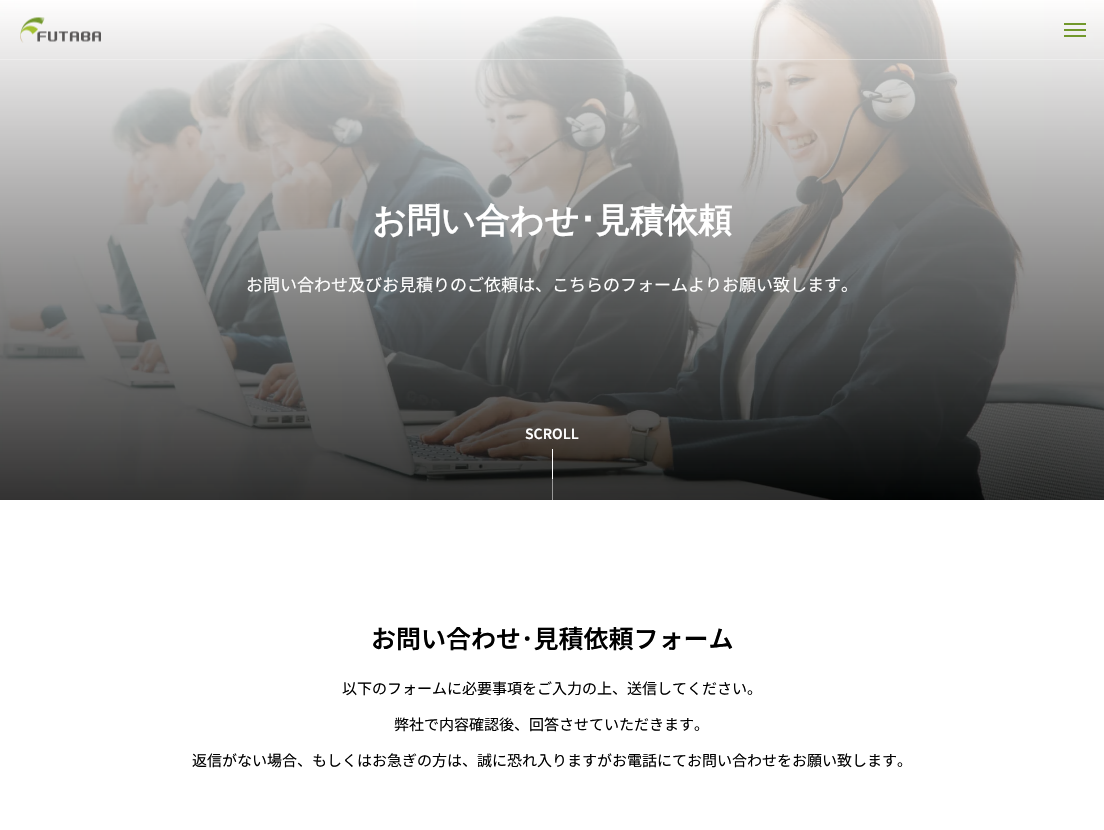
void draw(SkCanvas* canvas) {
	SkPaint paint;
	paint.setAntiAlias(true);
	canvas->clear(0xffffffff);
	canvas->drawImageRect(SkImages::DeferredFromEncodedData(SkData::MakeFromFileName("img2.png")), SkRect::MakeXYWH(0, 0, 1104, 500), SkSamplingOptions());
	{
		const SkColor colors[] = {0xccffffff, 0xcc000000};
		const float stops[] = {0, 1};
		const SkPoint ends[] = {{552, 0}, {552, 500}};
		paint.setShader(SkGradientShader::MakeLinear(ends, colors, stops, 2, SkTileMode::kClamp));
		paint.setAlpha(255);
	}
	canvas->drawRect(SkRect::MakeXYWH(0, 0, 1104, 500), paint);
	paint.setShader(nullptr);
	paint.setColor(0x4dffffff);
	canvas->drawRect(SkRect::MakeXYWH(0, 59, 1104, 1), paint);
	canvas->drawImageRect(SkImages::DeferredFromEncodedData(SkData::MakeFromFileName("img1.png")), SkRect::MakeXYWH(20, 17, 81, 26), SkSamplingOptions());
	paint.setColor(0xff72982c);
	canvas->drawRect(SkRect::MakeXYWH(1064, 23, 22, 2), paint);
	canvas->drawRect(SkRect::MakeXYWH(1064, 29, 22, 2), paint);
	canvas->drawRect(SkRect::MakeXYWH(1064, 35, 22, 2), paint);
	SkFont f1(fontMgr->matchFamilyStyle("WenQuanYi Zen Hei", SkFontStyle::Bold()), 34);
	f1.setSubpixel(true);
	paint.setColor(0xffffffff);
	canvas->drawString("お問い合わせ", 372, 232, f1, paint);
	SkFont f2(fontMgr->matchFamilyStyle("IPAPGothic", SkFontStyle::Bold()), 34);
	f2.setSubpixel(true);
	canvas->drawString("･", 579, 232, f2, paint);
	canvas->drawString("見積依頼", 596, 232, f1, paint);
	SkFont f3(fontMgr->matchFamilyStyle("Noto Sans JP", SkFontStyle::Normal()), 17);
	f3.setSubpixel(true);
	canvas->drawString("お問い合わせ及びお見積りのご依頼は、こちらのフォームよりお願い致します。", 246, 291, f3, paint);
	SkFont f4(fontMgr->matchFamilyStyle("Noto Sans JP", SkFontStyle(600, SkFontStyle::kNormal_Width, SkFontStyle::kUpright_Slant)), 14);
	f4.setSubpixel(true);
	canvas->drawString("SCROLL", 525, 439, f4, paint);
	paint.setColor(0x80ffffff);
	canvas->drawRect(SkRect::MakeXYWH(552, 479, 1, 21), paint);
	paint.setColor(0xffffffff);
	canvas->drawRect(SkRect::MakeXYWH(552, 449, 1, 30), paint);
	SkFont f5(fontMgr->matchFamilyStyle("Noto Sans JP", SkFontStyle(600, SkFontStyle::kNormal_Width, SkFontStyle::kUpright_Slant)), 25);
	f5.setSubpixel(true);
	paint.setColor(0xff000000);
	canvas->drawString("お問い合わせ･見積依頼フォーム", 371, 648, f5, paint);
	SkFont f6(fontMgr->matchFamilyStyle("Noto Sans JP", SkFontStyle::Normal()), 15);
	f6.setSubpixel(true);
	canvas->drawString("以下のフォームに必要事項をご入力の上、送信してください。", 342, 694, f6, paint);
	canvas->drawString("弊社で内容確認後、回答させていただきます。", 394, 730, f6, paint);
	canvas->drawString("返信がない場合、もしくはお急ぎの方は、誠に恐れ入りますがお電話にてお問い合わせをお願い致します。", 192, 766, f6, paint);
}
